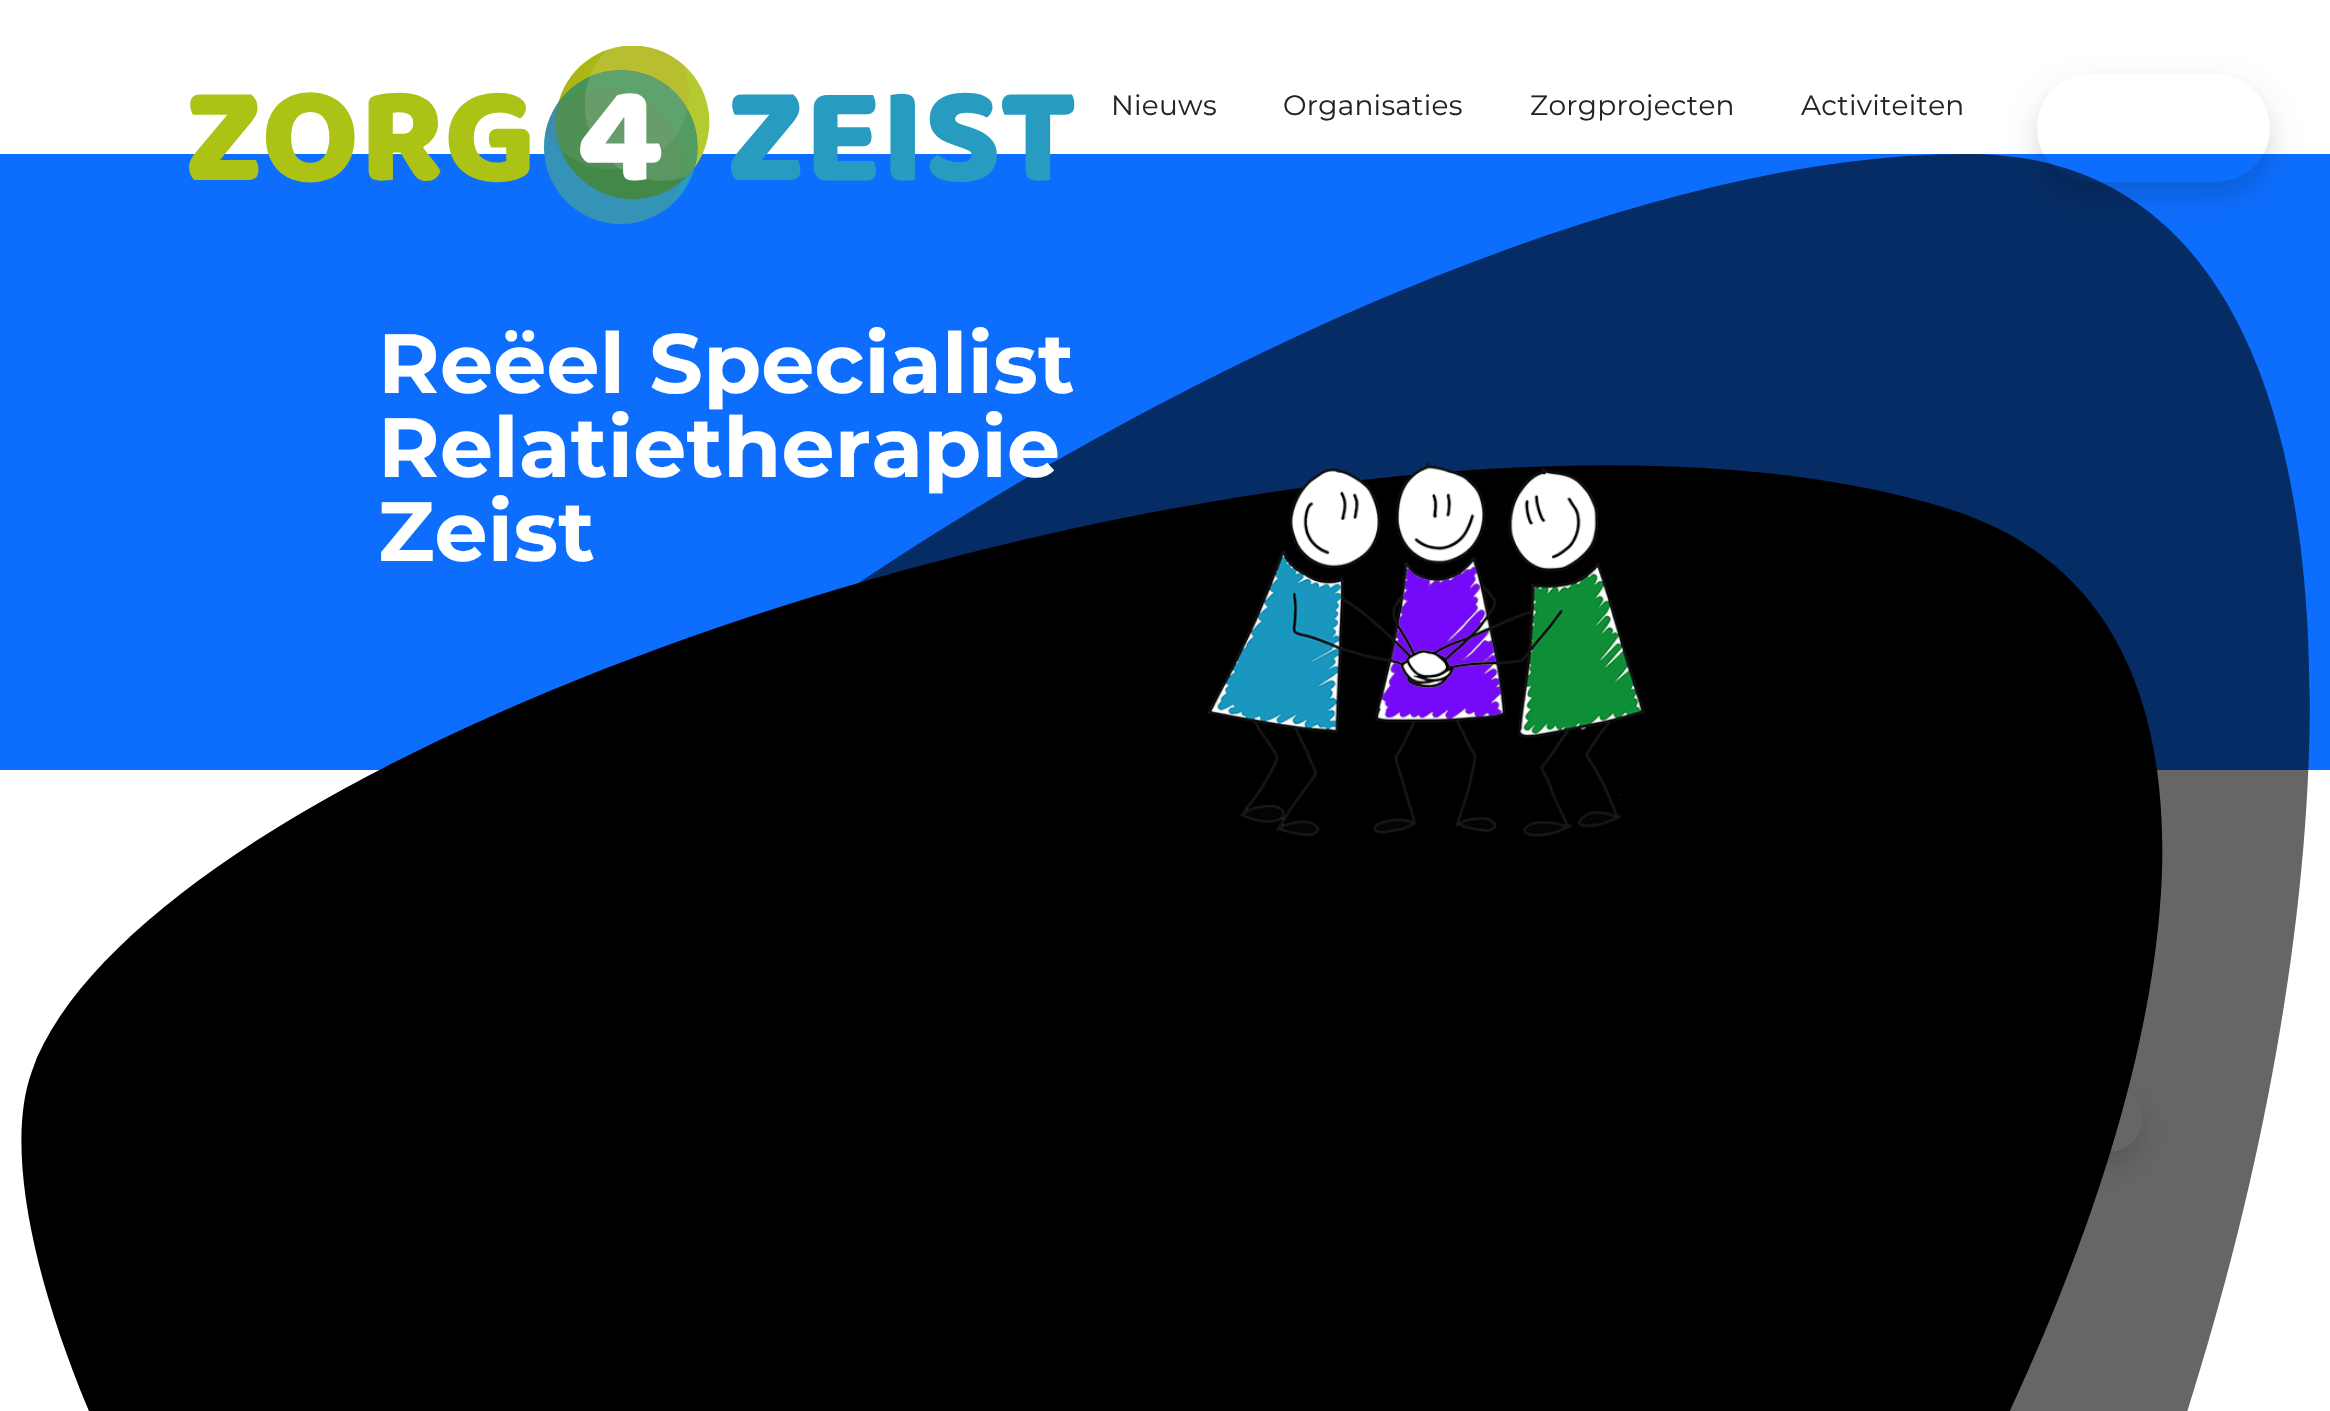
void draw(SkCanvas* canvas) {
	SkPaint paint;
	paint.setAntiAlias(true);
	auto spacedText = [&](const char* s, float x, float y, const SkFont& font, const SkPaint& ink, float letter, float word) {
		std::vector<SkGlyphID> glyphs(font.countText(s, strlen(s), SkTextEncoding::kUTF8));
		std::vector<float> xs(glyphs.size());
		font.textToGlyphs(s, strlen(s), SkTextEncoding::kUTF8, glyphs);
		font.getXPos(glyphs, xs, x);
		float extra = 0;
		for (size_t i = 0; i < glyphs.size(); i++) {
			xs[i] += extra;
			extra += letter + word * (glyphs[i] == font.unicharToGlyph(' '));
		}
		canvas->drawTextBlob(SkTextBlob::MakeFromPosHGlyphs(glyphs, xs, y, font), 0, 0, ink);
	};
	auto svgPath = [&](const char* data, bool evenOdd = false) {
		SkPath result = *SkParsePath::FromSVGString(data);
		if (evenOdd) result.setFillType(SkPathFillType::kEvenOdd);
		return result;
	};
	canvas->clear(0xffffffff);
	paint.setColor(0xff0d6efd);
	canvas->drawRect(SkRect::MakeXYWH(0, 154, 2330, 616), paint);
	canvas->drawImageRect(SkImages::DeferredFromEncodedData(SkData::MakeFromFileName("img1.png")), SkRect::MakeXYWH(189, 46, 886, 178), SkSamplingOptions());
	SkFont f1(fontMgr->matchFamilyStyle("Montserrat", SkFontStyle::Normal()), 28);
	f1.setSubpixel(true);
	paint.setColor(0xff212529);
	spacedText("Nieuws", 1111, 115, f1, paint, 0.25, 0);
	spacedText("Organisaties", 1283, 115, f1, paint, 0.25, 0);
	spacedText("Zorgprojecten", 1530, 115, f1, paint, 0.25, 0);
	spacedText("Activiteiten", 1801, 115, f1, paint, 0.25, 0);
	canvas->save();
	canvas->clipPath(svgPath("M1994 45H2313V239H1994ZM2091 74H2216C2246 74 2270 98 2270 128C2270 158 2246 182 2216 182H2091C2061 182 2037 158 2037 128C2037 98 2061 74 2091 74Z", true), true);
	paint.setColor(0x26000000);
	paint.setMaskFilter(SkMaskFilter::MakeBlur(kNormal_SkBlurStyle, 14));
	canvas->drawRoundRect(SkRect::MakeXYWH(2037, 88, 233, 108), 54, 54, paint);
	paint.setMaskFilter(nullptr);
	canvas->restore();
	canvas->save();
	canvas->clipPath(svgPath("M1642 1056H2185V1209H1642ZM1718.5 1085H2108.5C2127 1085 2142 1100 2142 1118.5C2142 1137 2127 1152 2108.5 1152H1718.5C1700 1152 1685 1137 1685 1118.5C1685 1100 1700 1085 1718.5 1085Z", true), true);
	paint.setMaskFilter(SkMaskFilter::MakeBlur(kNormal_SkBlurStyle, 14));
	canvas->drawRoundRect(SkRect::MakeXYWH(1685, 1099, 457, 67), 33.5, 33.5, paint);
	paint.setMaskFilter(nullptr);
	canvas->restore();
	paint.setColor(0xff000000);
	canvas->drawPath(svgPath("M32 1071C-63 1330 494 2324 1176 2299C1629 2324 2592 704 1946 508C1378 335 160 721 32 1071"), paint);
	paint.setColor(0x99000000);
	canvas->drawPath(svgPath("M237 1264C213 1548 1031 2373 1698 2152C2151 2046 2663 162 1973 154C1367 147 269 880 237 1264"), paint);
	SkFont f2(fontMgr->matchFamilyStyle("Montserrat", SkFontStyle::Bold()), 84);
	f2.setSubpixel(true);
	paint.setColor(0xffffffff);
	spacedText("Reëel Specialist", 378, 393, f2, paint, 0.25, 0);
	spacedText("Relatietherapie", 378, 477, f2, paint, 0.25, 0);
	spacedText("Zeist", 378, 561, f2, paint, 0.25, 0);
	canvas->drawImageRect(SkImages::DeferredFromEncodedData(SkData::MakeFromFileName("img2.png")), SkRect::MakeXYWH(1207, 462, 438, 375), SkSamplingOptions());
}
